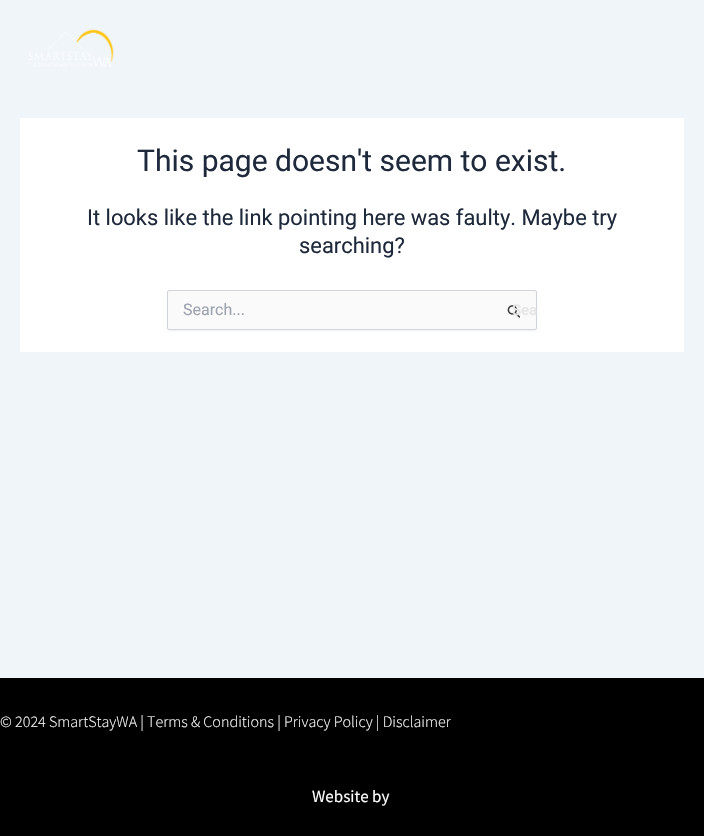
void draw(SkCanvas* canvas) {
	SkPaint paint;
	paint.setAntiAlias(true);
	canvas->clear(0xfff0f5fa);
	canvas->drawImageRect(SkImages::DeferredFromEncodedData(SkData::MakeFromFileName("img1.png")), SkRect::MakeXYWH(28, 29, 86, 38), SkSamplingOptions());
	paint.setColor(0xffffffff);
	canvas->drawRect(SkRect::MakeXYWH(20, 118, 664, 234), paint);
	SkFont f1(fontMgr->matchFamilyStyle("Roboto", SkFontStyle::Normal()), 30);
	f1.setSubpixel(true);
	paint.setColor(0xff1e293b);
	canvas->drawString("This page doesn't seem to exist.", 137, 171, f1, paint);
	SkFont f2(fontMgr->matchFamilyStyle("Roboto", SkFontStyle::Normal()), 21.9);
	f2.setSubpixel(true);
	canvas->drawString("It looks like the link pointing here was faulty. Maybe try", 87, 225, f2, paint);
	canvas->drawString("searching?", 299, 253, f2, paint);
	paint.setColor(0x0d000000);
	paint.setMaskFilter(SkMaskFilter::MakeBlur(kNormal_SkBlurStyle, 1));
	canvas->drawRoundRect(SkRect::MakeXYWH(167, 291, 370, 40), 2, 2, paint);
	paint.setMaskFilter(nullptr);
	paint.setColor(0xfffafafa);
	canvas->drawRoundRect(SkRect::MakeXYWH(167.5, 290.5, 369, 39), 1.5, 1.5, paint);
	paint.setStroke(true);
	paint.setStrokeWidth(1);
	paint.setColor(0xffd1d5db);
	canvas->drawRoundRect(SkRect::MakeXYWH(167.5, 290.5, 369, 39), 1.5, 1.5, paint);
	SkFont f3(fontMgr->matchFamilyStyle("Roboto", SkFontStyle::Normal()), 16);
	f3.setSubpixel(true);
	paint.setStroke(false);
	paint.setColor(0xff9ca3af);
	canvas->drawString("Search...", 183, 315, f3, paint);
	canvas->drawImageRect(SkImages::DeferredFromEncodedData(SkData::MakeFromFileName("img2.png")), SkRect::MakeXYWH(507, 305, 13, 13), SkSamplingOptions());
	SkFont f4(fontMgr->matchFamilyStyle("Roboto", SkFontStyle(500, SkFontStyle::kNormal_Width, SkFontStyle::kUpright_Slant)), 15);
	f4.setSubpixel(true);
	paint.setColor(0xffe6e6e6);
	canvas->drawString("Sea", 512, 315, f4, paint);
	paint.setColor(0xff000000);
	canvas->drawRect(SkRect::MakeXYWH(0, 678, 704, 158), paint);
	SkFont f5(fontMgr->matchFamilyStyle("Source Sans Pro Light", SkFontStyle(300, SkFontStyle::kNormal_Width, SkFontStyle::kUpright_Slant)), 16);
	f5.setSubpixel(true);
	paint.setColor(0xffffffff);
	canvas->drawString("© 2024 SmartStayWA | Terms & Conditions | Privacy Policy | Disclaimer", 0, 727, f5, paint);
	SkFont f6(fontMgr->matchFamilyStyle("Source Sans Pro", SkFontStyle::Normal()), 17);
	f6.setSubpixel(true);
	canvas->drawString("Website by", 312, 802, f6, paint);
}
